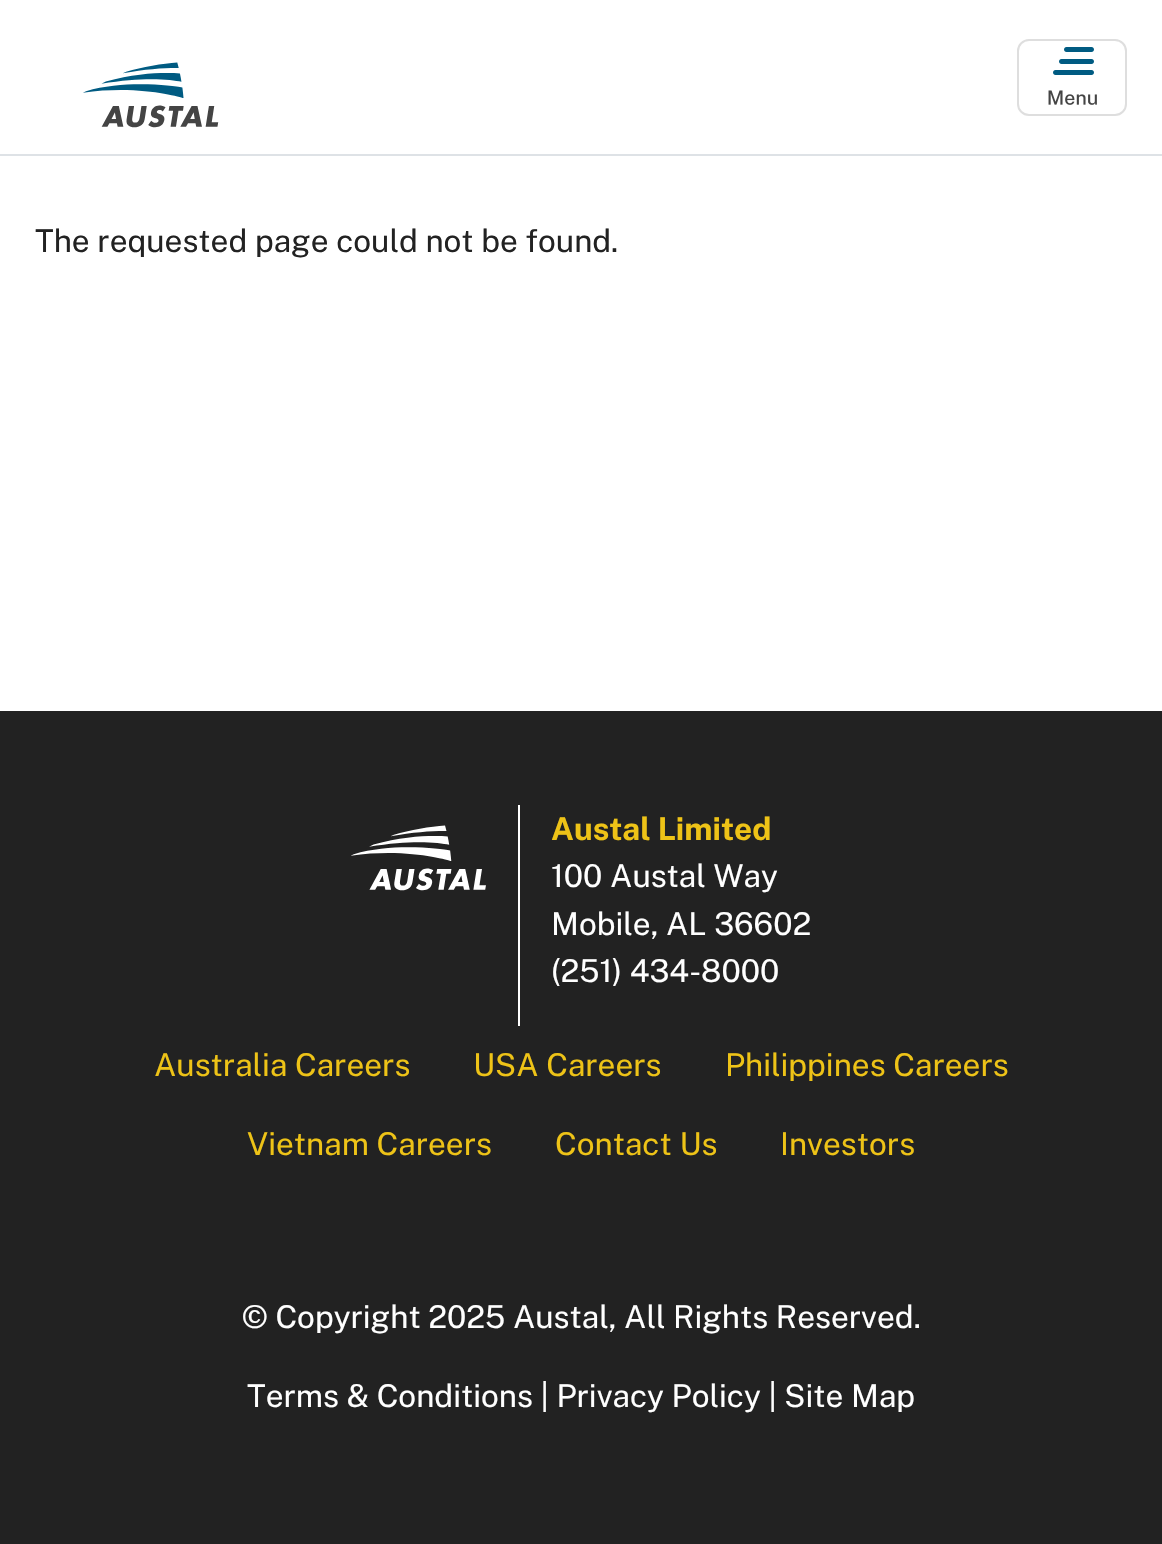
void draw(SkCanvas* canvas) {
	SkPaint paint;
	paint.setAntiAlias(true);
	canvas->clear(0xffffffff);
	paint.setColor(0xffdee2e6);
	canvas->drawRect(SkRect::MakeXYWH(0, 154, 1162, 2), paint);
	canvas->drawImageRect(SkImages::DeferredFromEncodedData(SkData::MakeFromFileName("img1.png")), SkRect::MakeXYWH(83, 62, 136, 66), SkSamplingOptions());
	paint.setStroke(true);
	paint.setStrokeWidth(2);
	paint.setColor(0xffdedede);
	canvas->drawRoundRect(SkRect::MakeXYWH(1018, 40, 108, 75), 11, 11, paint);
	canvas->drawImageRect(SkImages::DeferredFromEncodedData(SkData::MakeFromFileName("img2.png")), SkRect::MakeXYWH(1048, 47, 49, 58), SkSamplingOptions());
	SkFont f1(fontMgr->matchFamilyStyle("Public Sans", SkFontStyle::Normal()), 31.5);
	f1.setSubpixel(true);
	paint.setStroke(false);
	paint.setColor(0xff222222);
	canvas->drawString("The requested page could not be found.", 35, 252, f1, paint);
	canvas->drawRect(SkRect::MakeXYWH(0, 711, 1162, 833), paint);
	paint.setColor(0xffffffff);
	canvas->drawRect(SkRect::MakeXYWH(518, 805, 2, 221), paint);
	canvas->drawImageRect(SkImages::DeferredFromEncodedData(SkData::MakeFromFileName("img3.png")), SkRect::MakeXYWH(351, 825, 135, 66), SkSamplingOptions());
	SkFont f2(fontMgr->matchFamilyStyle("Public Sans", SkFontStyle::Bold()), 31.5);
	f2.setSubpixel(true);
	paint.setColor(0xffeec317);
	canvas->drawString("Austal Limited", 551, 840, f2, paint);
	paint.setColor(0xffffffff);
	canvas->drawString("100 Austal Way", 551, 887, f1, paint);
	canvas->drawString("Mobile, AL 36602", 551, 935, f1, paint);
	canvas->drawString("(251) 434-8000", 551, 982, f1, paint);
	paint.setColor(0xffeec317);
	canvas->drawString("Australia Careers", 154, 1076, f1, paint);
	canvas->drawString("USA Careers", 473, 1076, f1, paint);
	canvas->drawString("Philippines Careers", 725, 1076, f1, paint);
	canvas->drawString("Vietnam Careers", 247, 1155, f1, paint);
	canvas->drawString("Contact Us", 555, 1155, f1, paint);
	canvas->drawString("Investors", 780, 1155, f1, paint);
	paint.setColor(0xffffffff);
	canvas->drawString("© Copyright 2025 Austal, All Rights Reserved.", 242, 1328, f1, paint);
	canvas->drawString("Terms & Conditions | Privacy Policy | Site Map", 247, 1407, f1, paint);
}
